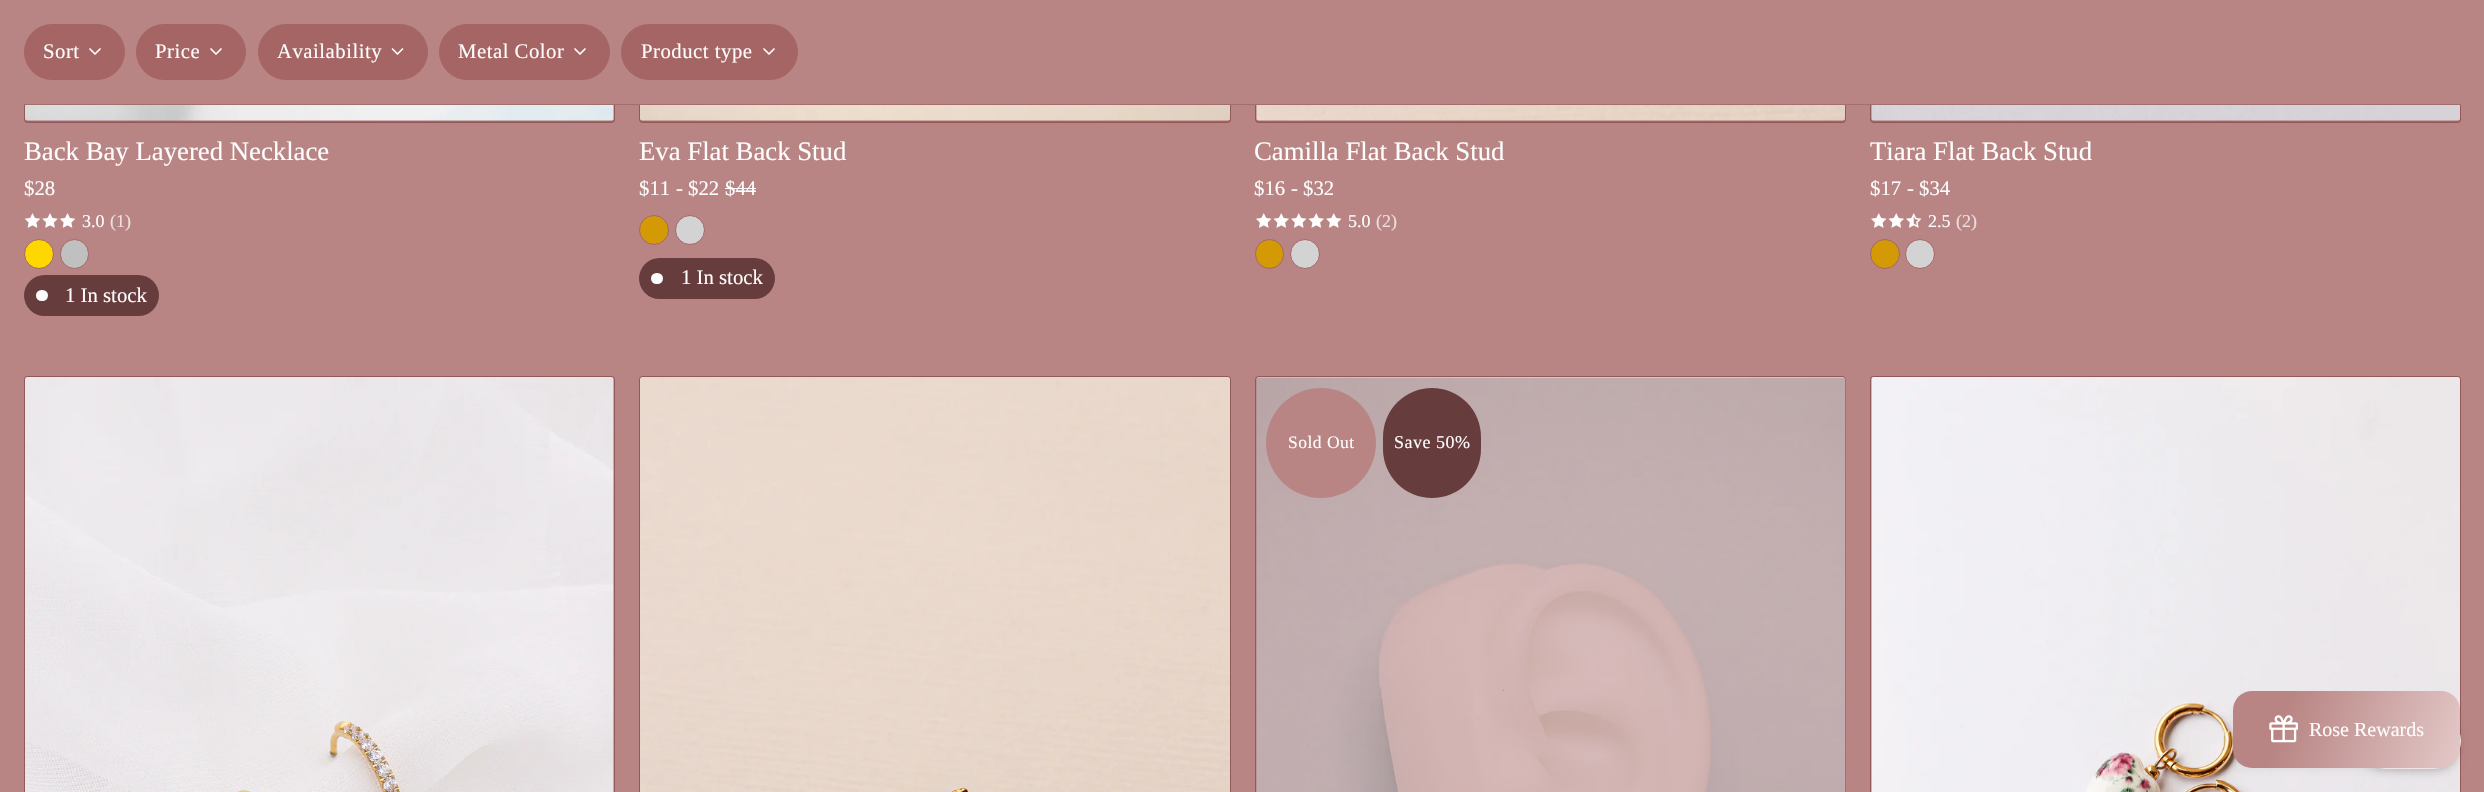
void draw(SkCanvas* canvas) {
	SkPaint paint;
	paint.setAntiAlias(true);
	auto spacedText = [&](const char* s, float x, float y, const SkFont& font, const SkPaint& ink, float letter, float word) {
		std::vector<SkGlyphID> glyphs(font.countText(s, strlen(s), SkTextEncoding::kUTF8));
		std::vector<float> xs(glyphs.size());
		font.textToGlyphs(s, strlen(s), SkTextEncoding::kUTF8, glyphs);
		font.getXPos(glyphs, xs, x);
		float extra = 0;
		for (size_t i = 0; i < glyphs.size(); i++) {
			xs[i] += extra;
			extra += letter + word * (glyphs[i] == font.unicharToGlyph(' '));
		}
		canvas->drawTextBlob(SkTextBlob::MakeFromPosHGlyphs(glyphs, xs, y, font), 0, 0, ink);
	};
	auto svgPath = [&](const char* data, bool evenOdd = false) {
		SkPath result = *SkParsePath::FromSVGString(data);
		if (evenOdd) result.setFillType(SkPathFillType::kEvenOdd);
		return result;
	};
	canvas->clear(0xffb88584);
	paint.setColor(0xffa56564);
	canvas->drawRoundRect(SkRect::MakeXYWH(24, -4, 591, 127), 4, 4, paint);
	paint.setStroke(true);
	paint.setStrokeWidth(1);
	paint.setColor(0x4d673c3c);
	canvas->drawRoundRect(SkRect::MakeXYWH(24.5, -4.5, 590, 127), 3.5, 3.5, paint);
	paint.setStroke(false);
	paint.setColor(0xffa56564);
	canvas->drawRoundRect(SkRect::MakeXYWH(639, -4, 592, 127), 4, 4, paint);
	paint.setStroke(true);
	paint.setColor(0x4d673c3c);
	canvas->drawRoundRect(SkRect::MakeXYWH(639.5, -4.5, 591, 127), 3.5, 3.5, paint);
	paint.setStroke(false);
	paint.setColor(0xffa56564);
	canvas->drawRoundRect(SkRect::MakeXYWH(1255, -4, 591, 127), 4, 4, paint);
	paint.setStroke(true);
	paint.setColor(0x4d673c3c);
	canvas->drawRoundRect(SkRect::MakeXYWH(1255.5, -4.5, 590, 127), 3.5, 3.5, paint);
	paint.setStroke(false);
	paint.setColor(0xffa56564);
	canvas->drawRoundRect(SkRect::MakeXYWH(1870, -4, 591, 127), 4, 4, paint);
	paint.setStroke(true);
	paint.setColor(0x4d673c3c);
	canvas->drawRoundRect(SkRect::MakeXYWH(1870.5, -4.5, 590, 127), 3.5, 3.5, paint);
	paint.setStroke(false);
	paint.setColor(0xffb88584);
	canvas->drawRect(SkRect::MakeXYWH(24, 0, 2437, 104), paint);
	paint.setColor(0xffa06f6e);
	canvas->drawRect(SkRect::MakeXYWH(24, 104, 2437, 1), paint);
	paint.setColor(0xffa56564);
	canvas->drawRoundRect(SkRect::MakeXYWH(24.5, 24.5, 100, 55), 27.5, 27.5, paint);
	paint.setStroke(true);
	canvas->drawRoundRect(SkRect::MakeXYWH(24.5, 24.5, 100, 55), 27.5, 27.5, paint);
	SkFont f1(fontMgr->matchFamilyStyle("Liberation Serif", SkFontStyle::Normal()), 20.75);
	f1.setSubpixel(true);
	paint.setStroke(false);
	paint.setColor(0xfffdfdfd);
	spacedText("Sort", 43, 58, f1, paint, 0.5, 0);
	paint.setStroke(true);
	paint.setStrokeWidth(1.7);
	paint.setStrokeCap(SkPaint::kRound_Cap);
	paint.setStrokeJoin(SkPaint::kRound_Join);
	canvas->drawPath(svgPath("M90 49L95 54L100 49"), paint);
	paint.setStroke(false);
	paint.setColor(0xffa56564);
	canvas->drawRoundRect(SkRect::MakeXYWH(136.5, 24.5, 109, 55), 27.5, 27.5, paint);
	paint.setStroke(true);
	paint.setStrokeWidth(1);
	paint.setStrokeCap(SkPaint::kButt_Cap);
	paint.setStrokeJoin(SkPaint::kMiter_Join);
	canvas->drawRoundRect(SkRect::MakeXYWH(136.5, 24.5, 109, 55), 27.5, 27.5, paint);
	paint.setStroke(false);
	paint.setColor(0xfffdfdfd);
	spacedText("Price", 155, 58, f1, paint, 0.5, 0);
	paint.setStroke(true);
	paint.setStrokeWidth(1.7);
	paint.setStrokeCap(SkPaint::kRound_Cap);
	paint.setStrokeJoin(SkPaint::kRound_Join);
	canvas->drawPath(svgPath("M211 49L216 54L221 49"), paint);
	paint.setStroke(false);
	paint.setColor(0xffa56564);
	canvas->drawRoundRect(SkRect::MakeXYWH(258.5, 24.5, 169, 55), 27.5, 27.5, paint);
	paint.setStroke(true);
	paint.setStrokeWidth(1);
	paint.setStrokeCap(SkPaint::kButt_Cap);
	paint.setStrokeJoin(SkPaint::kMiter_Join);
	canvas->drawRoundRect(SkRect::MakeXYWH(258.5, 24.5, 169, 55), 27.5, 27.5, paint);
	paint.setStroke(false);
	paint.setColor(0xfffdfdfd);
	spacedText("Availability", 277, 58, f1, paint, 0.5, 0);
	paint.setStroke(true);
	paint.setStrokeWidth(1.7);
	paint.setStrokeCap(SkPaint::kRound_Cap);
	paint.setStrokeJoin(SkPaint::kRound_Join);
	canvas->drawPath(svgPath("M392.5 49L397.5 54L402.5 49"), paint);
	paint.setStroke(false);
	paint.setColor(0xffa56564);
	canvas->drawRoundRect(SkRect::MakeXYWH(439.5, 24.5, 170, 55), 27.5, 27.5, paint);
	paint.setStroke(true);
	paint.setStrokeWidth(1);
	paint.setStrokeCap(SkPaint::kButt_Cap);
	paint.setStrokeJoin(SkPaint::kMiter_Join);
	canvas->drawRoundRect(SkRect::MakeXYWH(439.5, 24.5, 170, 55), 27.5, 27.5, paint);
	paint.setStroke(false);
	paint.setColor(0xfffdfdfd);
	spacedText("Metal Color", 458, 58, f1, paint, 0.5, 0);
	paint.setStroke(true);
	paint.setStrokeWidth(1.7);
	paint.setStrokeCap(SkPaint::kRound_Cap);
	paint.setStrokeJoin(SkPaint::kRound_Join);
	canvas->drawPath(svgPath("M575 49L580 54L585 49"), paint);
	paint.setStroke(false);
	paint.setColor(0xffa56564);
	canvas->drawRoundRect(SkRect::MakeXYWH(621.5, 24.5, 176, 55), 27.5, 27.5, paint);
	paint.setStroke(true);
	paint.setStrokeWidth(1);
	paint.setStrokeCap(SkPaint::kButt_Cap);
	paint.setStrokeJoin(SkPaint::kMiter_Join);
	canvas->drawRoundRect(SkRect::MakeXYWH(621.5, 24.5, 176, 55), 27.5, 27.5, paint);
	paint.setStroke(false);
	paint.setColor(0xfffdfdfd);
	spacedText("Product type", 641, 58, f1, paint, 0.5, 0);
	paint.setStroke(true);
	paint.setStrokeWidth(1.7);
	paint.setStrokeCap(SkPaint::kRound_Cap);
	paint.setStrokeJoin(SkPaint::kRound_Join);
	canvas->drawPath(svgPath("M764 49L769 54L774 49"), paint);
	canvas->drawImageRect(SkImages::DeferredFromEncodedData(SkData::MakeFromFileName("img1.png")), SkRect::MakeXYWH(25, 105, 589, 16), SkSamplingOptions());
	SkFont f2(fontMgr->matchFamilyStyle("Liberation Serif", SkFontStyle::Normal()), 26.75);
	f2.setSubpixel(true);
	paint.setStroke(false);
	canvas->drawString("Back Bay Layered Necklace", 24, 160, f2, paint);
	canvas->drawString("$28", 24, 195, f1, paint);
	canvas->drawImageRect(SkImages::DeferredFromEncodedData(SkData::MakeFromFileName("img2.png")), SkRect::MakeXYWH(24, 213, 17, 15), SkSamplingOptions());
	canvas->drawImageRect(SkImages::DeferredFromEncodedData(SkData::MakeFromFileName("img3.png")), SkRect::MakeXYWH(42, 213, 16, 15), SkSamplingOptions());
	canvas->drawImageRect(SkImages::DeferredFromEncodedData(SkData::MakeFromFileName("img2.png")), SkRect::MakeXYWH(59, 213, 17, 15), SkSamplingOptions());
	SkFont f3(fontMgr->matchFamilyStyle("Liberation Serif", SkFontStyle::Normal()), 18);
	f3.setSubpixel(true);
	canvas->drawString("3.0", 82, 227, f3, paint);
	paint.setColor(0xffecdfdf);
	canvas->drawString("(1)", 110, 227, f3, paint);
	paint.setColor(0xffffd700);
	canvas->drawCircle(39, 254, 14.5, paint);
	paint.setStroke(true);
	paint.setStrokeWidth(1);
	paint.setStrokeCap(SkPaint::kButt_Cap);
	paint.setStrokeJoin(SkPaint::kMiter_Join);
	paint.setColor(0xffa56564);
	canvas->drawCircle(39, 254, 14.5, paint);
	paint.setStroke(false);
	paint.setColor(0xffc0c0c0);
	canvas->drawRoundRect(SkRect::MakeXYWH(60.5, 239.5, 28, 29), 14, 14, paint);
	paint.setStroke(true);
	paint.setColor(0xffa56564);
	canvas->drawRoundRect(SkRect::MakeXYWH(60.5, 239.5, 28, 29), 14, 14, paint);
	paint.setStroke(false);
	paint.setColor(0xff673c3c);
	canvas->drawRoundRect(SkRect::MakeXYWH(24, 275, 135, 41), 20.5, 20.5, paint);
	paint.setColor(0xfffdfdfd);
	canvas->drawRoundRect(SkRect::MakeXYWH(36, 290, 12, 11), 5.5, 5.5, paint);
	canvas->drawString("1 In stock", 65, 302, f1, paint);
	canvas->drawImageRect(SkImages::DeferredFromEncodedData(SkData::MakeFromFileName("img4.png")), SkRect::MakeXYWH(640, 105, 590, 16), SkSamplingOptions());
	canvas->drawString("Eva Flat Back Stud", 639, 160, f2, paint);
	canvas->drawString("$11", 639, 195, f1, paint);
	canvas->drawString("- $22", 676, 195, f1, paint);
	canvas->drawString("$44", 725, 195, f1, paint);
	canvas->drawRect(SkRect::MakeXYWH(725, 188, 31, 1), paint);
	paint.setColor(0xffd49a06);
	canvas->drawCircle(654, 230, 14.5, paint);
	paint.setStroke(true);
	paint.setColor(0xffa56564);
	canvas->drawCircle(654, 230, 14.5, paint);
	paint.setStroke(false);
	paint.setColor(0xffd3d3d3);
	canvas->drawCircle(690, 230, 14.5, paint);
	paint.setStroke(true);
	paint.setColor(0xffa56564);
	canvas->drawCircle(690, 230, 14.5, paint);
	paint.setStroke(false);
	paint.setColor(0xff673c3c);
	canvas->drawRoundRect(SkRect::MakeXYWH(639, 258, 136, 41), 20.5, 20.5, paint);
	paint.setColor(0xfffdfdfd);
	canvas->drawRoundRect(SkRect::MakeXYWH(651, 273, 12, 11), 5.5, 5.5, paint);
	canvas->drawString("1 In stock", 681, 284, f1, paint);
	canvas->drawImageRect(SkImages::DeferredFromEncodedData(SkData::MakeFromFileName("img5.png")), SkRect::MakeXYWH(1256, 105, 589, 16), SkSamplingOptions());
	canvas->drawString("Camilla Flat Back Stud", 1254, 160, f2, paint);
	canvas->drawString("$16", 1254, 195, f1, paint);
	canvas->drawString("- $32", 1291, 195, f1, paint);
	canvas->drawImageRect(SkImages::DeferredFromEncodedData(SkData::MakeFromFileName("img6.png")), SkRect::MakeXYWH(1256, 213, 16, 15), SkSamplingOptions());
	canvas->drawImageRect(SkImages::DeferredFromEncodedData(SkData::MakeFromFileName("img7.png")), SkRect::MakeXYWH(1273, 213, 16, 15), SkSamplingOptions());
	canvas->drawImageRect(SkImages::DeferredFromEncodedData(SkData::MakeFromFileName("img6.png")), SkRect::MakeXYWH(1291, 213, 16, 15), SkSamplingOptions());
	canvas->drawImageRect(SkImages::DeferredFromEncodedData(SkData::MakeFromFileName("img7.png")), SkRect::MakeXYWH(1308, 213, 16, 15), SkSamplingOptions());
	canvas->drawImageRect(SkImages::DeferredFromEncodedData(SkData::MakeFromFileName("img6.png")), SkRect::MakeXYWH(1326, 213, 16, 15), SkSamplingOptions());
	canvas->drawString("5.0", 1348, 227, f3, paint);
	paint.setColor(0xffecdfdf);
	canvas->drawString("(2)", 1376, 227, f3, paint);
	paint.setColor(0xffd49a06);
	canvas->drawRoundRect(SkRect::MakeXYWH(1255.5, 239.5, 28, 29), 14, 14, paint);
	paint.setStroke(true);
	paint.setColor(0xffa56564);
	canvas->drawRoundRect(SkRect::MakeXYWH(1255.5, 239.5, 28, 29), 14, 14, paint);
	paint.setStroke(false);
	paint.setColor(0xffd3d3d3);
	canvas->drawCircle(1305, 254, 14.5, paint);
	paint.setStroke(true);
	paint.setColor(0xffa56564);
	canvas->drawCircle(1305, 254, 14.5, paint);
	canvas->drawImageRect(SkImages::DeferredFromEncodedData(SkData::MakeFromFileName("img8.png")), SkRect::MakeXYWH(1871, 105, 589, 16), SkSamplingOptions());
	paint.setStroke(false);
	paint.setColor(0xfffdfdfd);
	canvas->drawString("Tiara Flat Back Stud", 1870, 160, f2, paint);
	canvas->drawString("$17", 1870, 195, f1, paint);
	canvas->drawString("- $34", 1907, 195, f1, paint);
	canvas->drawImageRect(SkImages::DeferredFromEncodedData(SkData::MakeFromFileName("img6.png")), SkRect::MakeXYWH(1871, 213, 16, 15), SkSamplingOptions());
	canvas->drawImageRect(SkImages::DeferredFromEncodedData(SkData::MakeFromFileName("img7.png")), SkRect::MakeXYWH(1888, 213, 16, 15), SkSamplingOptions());
	canvas->drawImageRect(SkImages::DeferredFromEncodedData(SkData::MakeFromFileName("img9.png")), SkRect::MakeXYWH(1906, 213, 16, 15), SkSamplingOptions());
	canvas->drawString("2.5", 1928, 227, f3, paint);
	paint.setColor(0xffecdfdf);
	canvas->drawString("(2)", 1956, 227, f3, paint);
	paint.setColor(0xffd49a06);
	canvas->drawCircle(1885, 254, 14.5, paint);
	paint.setStroke(true);
	paint.setColor(0xffa56564);
	canvas->drawCircle(1885, 254, 14.5, paint);
	paint.setStroke(false);
	paint.setColor(0xffd3d3d3);
	canvas->drawCircle(1920, 254, 14.5, paint);
	paint.setStroke(true);
	paint.setColor(0xffa56564);
	canvas->drawCircle(1920, 254, 14.5, paint);
	paint.setStroke(false);
	canvas->drawRoundRect(SkRect::MakeXYWH(24, 376, 591, 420), 4, 4, paint);
	paint.setStroke(true);
	paint.setColor(0x4d673c3c);
	canvas->drawRoundRect(SkRect::MakeXYWH(24.5, 376.5, 590, 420), 3.5, 3.5, paint);
	canvas->drawImageRect(SkImages::DeferredFromEncodedData(SkData::MakeFromFileName("img10.png")), SkRect::MakeXYWH(25, 377, 589, 415), SkSamplingOptions());
	paint.setStroke(false);
	paint.setColor(0xffa56564);
	canvas->drawRoundRect(SkRect::MakeXYWH(639, 376, 592, 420), 4, 4, paint);
	paint.setStroke(true);
	paint.setColor(0x4d673c3c);
	canvas->drawRoundRect(SkRect::MakeXYWH(639.5, 376.5, 591, 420), 3.5, 3.5, paint);
	canvas->drawImageRect(SkImages::DeferredFromEncodedData(SkData::MakeFromFileName("img11.png")), SkRect::MakeXYWH(640, 377, 590, 415), SkSamplingOptions());
	paint.setStroke(false);
	paint.setColor(0xffa56564);
	canvas->drawRoundRect(SkRect::MakeXYWH(1255, 376, 591, 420), 4, 4, paint);
	paint.setStroke(true);
	paint.setColor(0x4d673c3c);
	canvas->drawRoundRect(SkRect::MakeXYWH(1255.5, 376.5, 590, 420), 3.5, 3.5, paint);
	canvas->drawImageRect(SkImages::DeferredFromEncodedData(SkData::MakeFromFileName("img12.png")), SkRect::MakeXYWH(1256, 377, 589, 415), SkSamplingOptions());
	paint.setStroke(false);
	paint.setColor(0x80b88584);
	canvas->drawPath(svgPath("M1256 378H1846V792C1846 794 1844 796 1842 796H1256Z"), paint);
	paint.setColor(0xffb88584);
	canvas->drawCircle(1321, 443, 55, paint);
	SkFont f4(fontMgr->matchFamilyStyle("Liberation Serif", SkFontStyle::Normal()), 17.5);
	f4.setSubpixel(true);
	paint.setColor(0xfffdfdfd);
	spacedText("Sold Out", 1288, 448, f4, paint, 0.5, 0);
	paint.setColor(0xff673c3c);
	canvas->drawRoundRect(SkRect::MakeXYWH(1383, 388, 98, 110), 49, 49, paint);
	paint.setColor(0xfffdfdfd);
	spacedText("Save 50%", 1394, 448, f3, paint, 0.5, 0);
	paint.setColor(0xffa56564);
	canvas->drawRoundRect(SkRect::MakeXYWH(1870, 376, 591, 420), 4, 4, paint);
	paint.setStroke(true);
	paint.setColor(0x4d673c3c);
	canvas->drawRoundRect(SkRect::MakeXYWH(1870.5, 376.5, 590, 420), 3.5, 3.5, paint);
	canvas->drawImageRect(SkImages::DeferredFromEncodedData(SkData::MakeFromFileName("img13.png")), SkRect::MakeXYWH(1871, 377, 589, 415), SkSamplingOptions());
	paint.setStroke(false);
	paint.setColor(0x1a000000);
	paint.setMaskFilter(SkMaskFilter::MakeBlur(kNormal_SkBlurStyle, 2.5));
	canvas->drawRoundRect(SkRect::MakeXYWH(2360, 718, 99, 51), 25.5, 25.5, paint);
	paint.setMaskFilter(nullptr);
	paint.setMaskFilter(SkMaskFilter::MakeBlur(kNormal_SkBlurStyle, 4));
	canvas->drawRoundRect(SkRect::MakeXYWH(2359, 719, 101, 54), 27, 27, paint);
	paint.setMaskFilter(nullptr);
	paint.setStroke(true);
	paint.setColor(0xfffaedec);
	canvas->drawRoundRect(SkRect::MakeXYWH(2358.5, 713.5, 102, 55), 27.5, 27.5, paint);
	paint.setStroke(false);
	paint.setColor(0x14444444);
	paint.setMaskFilter(SkMaskFilter::MakeBlur(kNormal_SkBlurStyle, 5));
	canvas->drawRoundRect(SkRect::MakeXYWH(2235, 699, 223, 71), 16, 16, paint);
	paint.setMaskFilter(nullptr);
	{
		const SkColor colors[] = {0xffb88584, 0xfffaedec};
		const float stops[] = {0.17, 1};
		const SkPoint ends[] = {{2233, 689}, {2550, 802}};
		paint.setShader(SkGradientShader::MakeLinear(ends, colors, stops, 2, SkTileMode::kClamp));
		paint.setAlpha(255);
	}
	canvas->drawRoundRect(SkRect::MakeXYWH(2233, 691, 227, 77), 19, 19, paint);
	canvas->drawImageRect(SkImages::DeferredFromEncodedData(SkData::MakeFromFileName("img14.png")), SkRect::MakeXYWH(2269, 715, 29, 28), SkSamplingOptions());
	SkFont f5(fontMgr->matchFamilyStyle("Liberation Serif", SkFontStyle::Normal()), 20);
	f5.setSubpixel(true);
	paint.setShader(nullptr);
	paint.setColor(0xfffdfdfd);
	canvas->drawString("Rose Rewards", 2309, 736, f5, paint);
}
